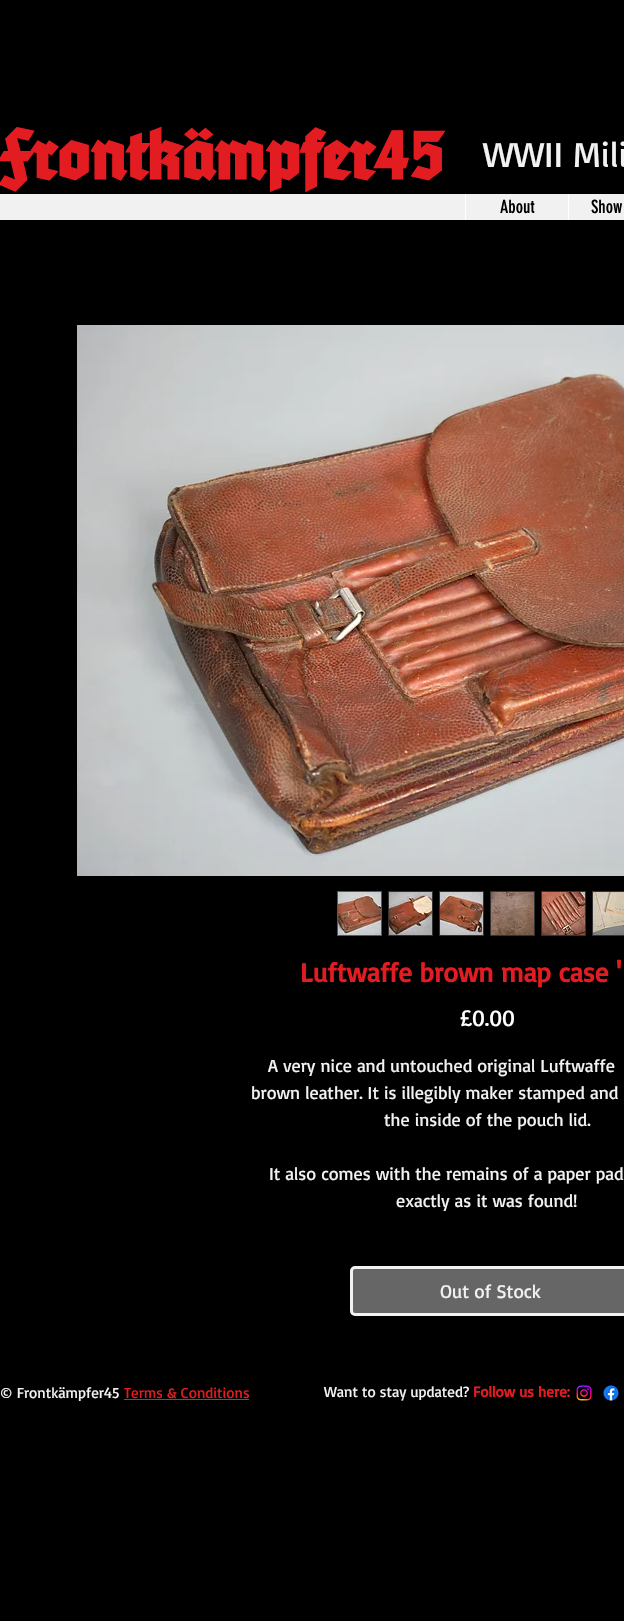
void draw(SkCanvas* canvas) {
	SkPaint paint;
	paint.setAntiAlias(true);
	canvas->clear(0xff000000);
	SkFont f1(fontMgr->matchFamilyStyle("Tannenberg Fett", SkFontStyle::Normal()), 70);
	f1.setSubpixel(true);
	paint.setColor(0xffe21c21);
	canvas->drawString("Frontkämpfer45", 0, 178, f1, paint);
	SkFont f2(fontMgr->matchFamilyStyle("Basic", SkFontStyle::Normal()), 36);
	f2.setSubpixel(true);
	paint.setColor(0xfff2f2f2);
	canvas->drawString("WWII Mili", 483, 167, f2, paint);
	paint.setColor(0xfff1f1f1);
	canvas->drawRect(SkRect::MakeXYWH(0, 194, 624, 26), paint);
	paint.setColor(0xffffffff);
	canvas->drawRect(SkRect::MakeXYWH(465, 194, 1, 26), paint);
	SkFont f3(fontMgr->matchFamilyStyle("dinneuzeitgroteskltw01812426", SkFontStyle::Normal()), 18);
	f3.setSubpixel(true);
	paint.setColor(0xff000000);
	canvas->drawString("About", 500, 213, f3, paint);
	paint.setColor(0xffffffff);
	canvas->drawRect(SkRect::MakeXYWH(568, 194, 1, 26), paint);
	paint.setColor(0xff000000);
	canvas->drawString("Show", 591, 213, f3, paint);
	canvas->drawImageRect(SkImages::DeferredFromEncodedData(SkData::MakeFromFileName("img1.png")), SkRect::MakeXYWH(77, 325, 547, 551), SkSamplingOptions());
	paint.setStroke(true);
	paint.setStrokeWidth(1);
	paint.setColor(0xffe21c21);
	canvas->drawRect(SkRect::MakeXYWH(337.5, 891.5, 44, 44), paint);
	canvas->drawImageRect(SkImages::DeferredFromEncodedData(SkData::MakeFromFileName("img2.png")), SkRect::MakeXYWH(338, 892, 43, 43), SkSamplingOptions());
	paint.setStroke(false);
	paint.setColor(0xff333333);
	canvas->drawRect(SkRect::MakeXYWH(388, 891, 45, 45), paint);
	canvas->drawImageRect(SkImages::DeferredFromEncodedData(SkData::MakeFromFileName("img3.png")), SkRect::MakeXYWH(389, 892, 43, 43), SkSamplingOptions());
	canvas->drawRect(SkRect::MakeXYWH(439, 891, 45, 45), paint);
	canvas->drawImageRect(SkImages::DeferredFromEncodedData(SkData::MakeFromFileName("img4.png")), SkRect::MakeXYWH(440, 892, 43, 43), SkSamplingOptions());
	canvas->drawRect(SkRect::MakeXYWH(490, 891, 45, 45), paint);
	canvas->drawImageRect(SkImages::DeferredFromEncodedData(SkData::MakeFromFileName("img5.png")), SkRect::MakeXYWH(491, 892, 43, 43), SkSamplingOptions());
	canvas->drawRect(SkRect::MakeXYWH(541, 891, 45, 45), paint);
	canvas->drawImageRect(SkImages::DeferredFromEncodedData(SkData::MakeFromFileName("img6.png")), SkRect::MakeXYWH(542, 892, 43, 43), SkSamplingOptions());
	canvas->drawRect(SkRect::MakeXYWH(592, 891, 32, 45), paint);
	canvas->drawImageRect(SkImages::DeferredFromEncodedData(SkData::MakeFromFileName("img7.png")), SkRect::MakeXYWH(593, 892, 31, 43), SkSamplingOptions());
	SkFont f4(fontMgr->matchFamilyStyle("Basic", SkFontStyle::Bold()), 27);
	f4.setSubpixel(true);
	paint.setColor(0xffe21c21);
	canvas->drawString("Luftwaffe brown map case '", 300, 982, f4, paint);
	SkFont f5(fontMgr->matchFamilyStyle("Basic", SkFontStyle::Normal()), 23);
	f5.setSubpixel(true);
	paint.setColor(0xffffffff);
	canvas->drawString("£0.00", 460, 1026, f5, paint);
	SkFont f6(fontMgr->matchFamilyStyle("Basic", SkFontStyle::Normal()), 18);
	f6.setSubpixel(true);
	paint.setColor(0xfff2f2f2);
	canvas->drawString("A very nice and untouched original Luftwaffe", 268, 1072, f6, paint);
	canvas->drawString("brown leather. It is illegibly maker stamped and", 251, 1099, f6, paint);
	canvas->drawString("the inside of the pouch lid.", 384, 1126, f6, paint);
	canvas->drawString("It also comes with the remains of a paper pad", 269, 1180, f6, paint);
	canvas->drawString("exactly as it was found!", 396, 1207, f6, paint);
	paint.setColor(0xff666666);
	canvas->drawRoundRect(SkRect::MakeXYWH(351.5, 1267.5, 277, 47), 3.5, 3.5, paint);
	paint.setStroke(true);
	paint.setStrokeWidth(3);
	paint.setColor(0xfff2f2f2);
	canvas->drawRoundRect(SkRect::MakeXYWH(351.5, 1267.5, 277, 47), 3.5, 3.5, paint);
	SkFont f7(fontMgr->matchFamilyStyle("Basic", SkFontStyle::Normal()), 19);
	f7.setSubpixel(true);
	paint.setStroke(false);
	canvas->drawString("Out of Stock", 440, 1298, f7, paint);
	SkFont f8(fontMgr->matchFamilyStyle("Basic", SkFontStyle::Normal()), 15);
	f8.setSubpixel(true);
	canvas->drawString("© Frontkämpfer45", 0, 1398, f8, paint);
	paint.setColor(0xffe21c21);
	canvas->drawString("Terms & Conditions", 124, 1398, f8, paint);
	canvas->drawRect(SkRect::MakeXYWH(124, 1399, 125, 1), paint);
	paint.setColor(0xfff2f2f2);
	canvas->drawString("Want to stay updated?", 324, 1397, f8, paint);
	SkFont f9(fontMgr->matchFamilyStyle("Basic", SkFontStyle::Bold()), 15);
	f9.setSubpixel(true);
	paint.setColor(0xffe21c21);
	canvas->drawString("Follow us here:", 473, 1397, f9, paint);
	canvas->drawImageRect(SkImages::DeferredFromEncodedData(SkData::MakeFromFileName("img8.png")), SkRect::MakeXYWH(576, 1385, 16, 16), SkSamplingOptions());
	canvas->drawImageRect(SkImages::DeferredFromEncodedData(SkData::MakeFromFileName("img9.png")), SkRect::MakeXYWH(603, 1385, 16, 16), SkSamplingOptions());
}
